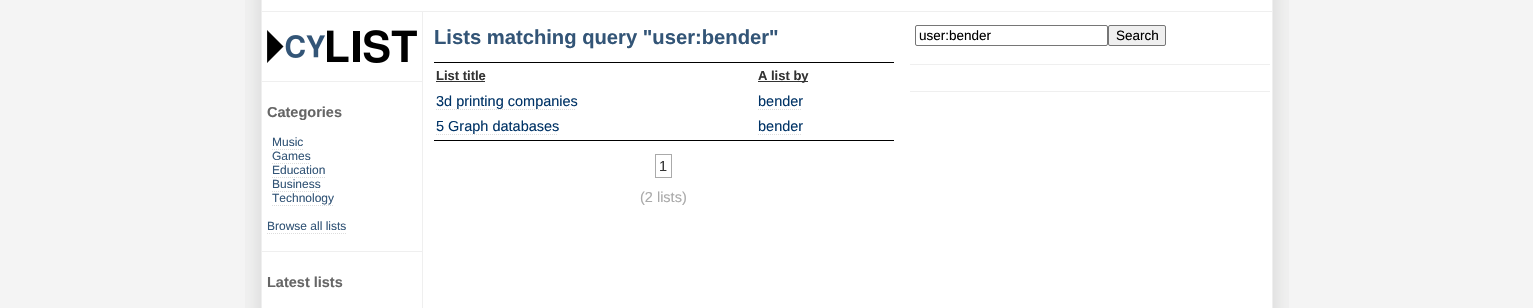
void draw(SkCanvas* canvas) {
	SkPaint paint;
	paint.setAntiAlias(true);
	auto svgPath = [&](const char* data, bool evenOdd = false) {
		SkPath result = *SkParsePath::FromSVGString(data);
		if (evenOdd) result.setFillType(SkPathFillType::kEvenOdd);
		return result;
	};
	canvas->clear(0xfff4f4f4);
	canvas->drawImageRect(SkImages::DeferredFromEncodedData(SkData::MakeFromFileName("img1.png")), SkRect::MakeXYWH(245, 0, 1044, 308), SkSamplingOptions());
	paint.setColor(0xffefefef);
	canvas->drawRect(SkRect::MakeXYWH(1272, 0, 1, 308), paint);
	canvas->drawRect(SkRect::MakeXYWH(261, 0, 1, 308), paint);
	canvas->drawRect(SkRect::MakeXYWH(262, 11, 1010, 1), paint);
	canvas->drawRect(SkRect::MakeXYWH(422, 12, 1, 296), paint);
	SkFont f1(fontMgr->matchFamilyStyle("Liberation Sans", SkFontStyle::Bold()), 20.2);
	f1.setSubpixel(true);
	paint.setColor(0xff335577);
	canvas->drawString("Lists matching query \"user:bender\"", 434, 44, f1, paint);
	paint.setColor(0xff000000);
	canvas->drawRect(SkRect::MakeXYWH(434, 62, 460, 1), paint);
	canvas->drawRect(SkRect::MakeXYWH(434, 140, 460, 1), paint);
	SkFont f2(fontMgr->matchFamilyStyle("Liberation Sans", SkFontStyle::Bold()), 13);
	f2.setSubpixel(true);
	paint.setColor(0xff333333);
	canvas->drawString("List title", 436, 80, f2, paint);
	canvas->drawRect(SkRect::MakeXYWH(436, 81, 49, 1), paint);
	canvas->drawRect(SkRect::MakeXYWH(758, 81, 50, 1), paint);
	canvas->drawString("A list by", 758, 80, f2, paint);
	SkFont f3(fontMgr->matchFamilyStyle("Liberation Sans", SkFontStyle::Normal()), 14.5);
	f3.setSubpixel(true);
	paint.setColor(0xff003366);
	canvas->drawString("3d printing companies", 436, 106, f3, paint);
	paint.setStroke(true);
	paint.setStrokeWidth(1);
	paint.setColor(0xffdddddd);
	paint.setPathEffect(SkDashPathEffect::Make({{1, 1}}, 0));
	canvas->drawPath(svgPath("M436 109.5H576"), paint);
	paint.setPathEffect(nullptr);
	paint.setStroke(false);
	paint.setColor(0xff003366);
	canvas->drawString("bender", 758, 106, f3, paint);
	paint.setStroke(true);
	paint.setColor(0xffdddddd);
	paint.setPathEffect(SkDashPathEffect::Make({{1, 1}}, 0));
	canvas->drawPath(svgPath("M758 109.5H802"), paint);
	paint.setPathEffect(nullptr);
	paint.setStroke(false);
	paint.setColor(0xff003366);
	canvas->drawString("5 Graph databases", 436, 131, f3, paint);
	paint.setStroke(true);
	paint.setColor(0xffdddddd);
	paint.setPathEffect(SkDashPathEffect::Make({{1, 1}}, 0));
	canvas->drawPath(svgPath("M436 134.5H558"), paint);
	paint.setPathEffect(nullptr);
	paint.setStroke(false);
	paint.setColor(0xff003366);
	canvas->drawString("bender", 758, 131, f3, paint);
	paint.setStroke(true);
	paint.setColor(0xffdddddd);
	paint.setPathEffect(SkDashPathEffect::Make({{1, 1}}, 0));
	canvas->drawPath(svgPath("M758 134.5H802"), paint);
	paint.setPathEffect(nullptr);
	paint.setColor(0xffaaaaaa);
	canvas->drawRect(SkRect::MakeXYWH(655.5, 154.5, 16, 23), paint);
	paint.setStroke(false);
	paint.setColor(0xff333333);
	canvas->drawString("1", 659, 171, f3, paint);
	paint.setColor(0xffaaaaaa);
	canvas->drawString("(2 lists)", 640, 202, f3, paint);
	paint.setColor(0xffefefef);
	canvas->drawRect(SkRect::MakeXYWH(910, 64, 360, 1), paint);
	paint.setStroke(true);
	paint.setColor(0xff767676);
	canvas->drawRoundRect(SkRect::MakeXYWH(915.5, 25.5, 192, 20), 1.5, 1.5, paint);
	SkFont f4(fontMgr->matchFamilyStyle("Liberation Sans", SkFontStyle::Normal()), 13.5);
	f4.setSubpixel(true);
	paint.setStroke(false);
	paint.setColor(0xff000000);
	canvas->drawString("user:bender", 919, 40, f4, paint);
	paint.setColor(0xffefefef);
	canvas->drawRoundRect(SkRect::MakeXYWH(1108.5, 25.5, 57, 20), 1.5, 1.5, paint);
	paint.setStroke(true);
	paint.setColor(0xff767676);
	canvas->drawRoundRect(SkRect::MakeXYWH(1108.5, 25.5, 57, 20), 1.5, 1.5, paint);
	paint.setStroke(false);
	paint.setColor(0xff000000);
	canvas->drawString("Search", 1116, 40, f4, paint);
	paint.setColor(0xffefefef);
	canvas->drawRect(SkRect::MakeXYWH(910, 91, 360, 1), paint);
	canvas->drawRect(SkRect::MakeXYWH(262, 81, 160, 1), paint);
	canvas->drawImageRect(SkImages::DeferredFromEncodedData(SkData::MakeFromFileName("img2.png")), SkRect::MakeXYWH(267, 30, 150, 33), SkSamplingOptions());
	canvas->drawRect(SkRect::MakeXYWH(262, 251, 160, 1), paint);
	SkFont f5(fontMgr->matchFamilyStyle("Liberation Sans", SkFontStyle::Bold()), 14.5);
	f5.setSubpixel(true);
	paint.setColor(0xff666666);
	canvas->drawString("Categories", 267, 117, f5, paint);
	SkFont f6(fontMgr->matchFamilyStyle("Liberation Sans", SkFontStyle::Normal()), 12);
	f6.setSubpixel(true);
	paint.setColor(0xff335577);
	canvas->drawString("Music", 272, 146, f6, paint);
	paint.setStroke(true);
	paint.setColor(0xffdddddd);
	paint.setPathEffect(SkDashPathEffect::Make({{1, 1}}, 0));
	canvas->drawPath(svgPath("M272 149.5H303"), paint);
	paint.setPathEffect(nullptr);
	paint.setStroke(false);
	paint.setColor(0xff335577);
	canvas->drawString("Games", 272, 160, f6, paint);
	paint.setStroke(true);
	paint.setColor(0xffdddddd);
	paint.setPathEffect(SkDashPathEffect::Make({{1, 1}}, 0));
	canvas->drawPath(svgPath("M272 163.5H310"), paint);
	paint.setPathEffect(nullptr);
	paint.setStroke(false);
	paint.setColor(0xff335577);
	canvas->drawString("Education", 272, 174, f6, paint);
	paint.setStroke(true);
	paint.setColor(0xffdddddd);
	paint.setPathEffect(SkDashPathEffect::Make({{1, 1}}, 0));
	canvas->drawPath(svgPath("M272 177.5H325"), paint);
	paint.setPathEffect(nullptr);
	paint.setStroke(false);
	paint.setColor(0xff335577);
	canvas->drawString("Business", 272, 188, f6, paint);
	paint.setStroke(true);
	paint.setColor(0xffdddddd);
	paint.setPathEffect(SkDashPathEffect::Make({{1, 1}}, 0));
	canvas->drawPath(svgPath("M272 191.5H320"), paint);
	paint.setPathEffect(nullptr);
	paint.setStroke(false);
	paint.setColor(0xff335577);
	canvas->drawString("Technology", 272, 202, f6, paint);
	paint.setStroke(true);
	paint.setColor(0xffdddddd);
	paint.setPathEffect(SkDashPathEffect::Make({{1, 1}}, 0));
	canvas->drawPath(svgPath("M272 205.5H334"), paint);
	paint.setPathEffect(nullptr);
	paint.setStroke(false);
	paint.setColor(0xff335577);
	canvas->drawString("Browse all lists", 267, 230, f6, paint);
	paint.setStroke(true);
	paint.setColor(0xffdddddd);
	paint.setPathEffect(SkDashPathEffect::Make({{1, 1}}, 0));
	canvas->drawPath(svgPath("M267 233.5H346"), paint);
	paint.setPathEffect(nullptr);
	paint.setStroke(false);
	paint.setColor(0xff666666);
	canvas->drawString("Latest lists", 267, 287, f5, paint);
}
